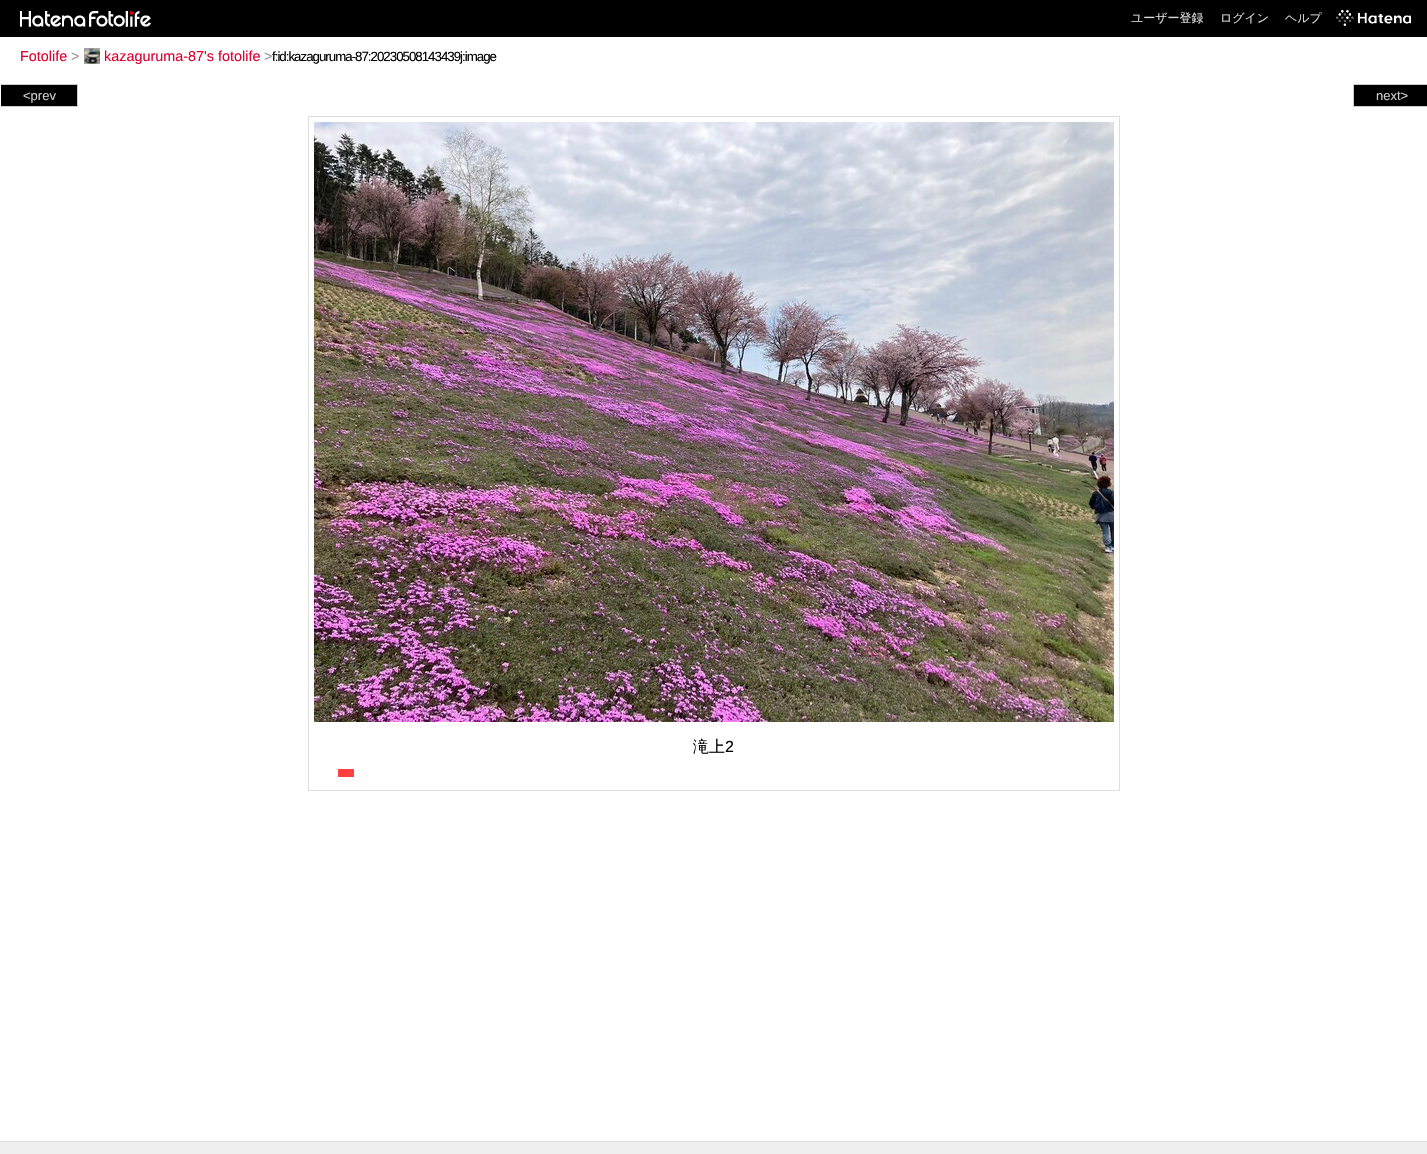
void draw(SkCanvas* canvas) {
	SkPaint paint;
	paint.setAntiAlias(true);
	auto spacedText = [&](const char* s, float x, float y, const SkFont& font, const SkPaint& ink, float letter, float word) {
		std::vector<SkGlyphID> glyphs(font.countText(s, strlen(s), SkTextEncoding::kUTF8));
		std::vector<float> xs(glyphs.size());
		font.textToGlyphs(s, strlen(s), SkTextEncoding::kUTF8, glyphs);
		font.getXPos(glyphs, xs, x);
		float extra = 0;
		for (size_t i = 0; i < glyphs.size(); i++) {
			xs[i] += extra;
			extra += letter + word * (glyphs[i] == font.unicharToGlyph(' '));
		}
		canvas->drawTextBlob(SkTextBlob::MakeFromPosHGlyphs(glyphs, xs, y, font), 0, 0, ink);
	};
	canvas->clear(0xffefefef);
	paint.setColor(0xff000000);
	canvas->drawRect(SkRect::MakeXYWH(0, 0, 1427, 37), paint);
	canvas->drawImageRect(SkImages::DeferredFromEncodedData(SkData::MakeFromFileName("img1.png")), SkRect::MakeXYWH(20, 11, 66, 16), SkSamplingOptions());
	canvas->drawImageRect(SkImages::DeferredFromEncodedData(SkData::MakeFromFileName("img2.png")), SkRect::MakeXYWH(89, 11, 62, 16), SkSamplingOptions());
	SkFont f1(fontMgr->matchFamilyStyle("WenQuanYi Zen Hei", SkFontStyle(500, SkFontStyle::kNormal_Width, SkFontStyle::kUpright_Slant)), 12);
	f1.setSubpixel(true);
	paint.setColor(0xffdddddd);
	canvas->drawString("ユーザー登録", 1131, 22, f1, paint);
	canvas->drawString("ログイン", 1220, 22, f1, paint);
	canvas->drawString("ヘルプ", 1285, 22, f1, paint);
	canvas->drawImageRect(SkImages::DeferredFromEncodedData(SkData::MakeFromFileName("img3.png")), SkRect::MakeXYWH(1336, 10, 75, 16), SkSamplingOptions());
	paint.setColor(0xffffffff);
	canvas->drawRect(SkRect::MakeXYWH(0, 37, 1427, 1104), paint);
	SkFont f2(fontMgr->matchFamilyStyle("Liberation Sans", SkFontStyle::Normal()), 14.4);
	f2.setSubpixel(true);
	paint.setColor(0xffde002f);
	canvas->drawString("Fotolife", 20, 61, f2, paint);
	paint.setColor(0xff999999);
	canvas->drawString(">", 71, 61, f2, paint);
	canvas->drawImageRect(SkImages::DeferredFromEncodedData(SkData::MakeFromFileName("img4.png")), SkRect::MakeXYWH(84, 48, 16, 16), SkSamplingOptions());
	paint.setColor(0xffde002f);
	canvas->drawString("kazaguruma-87's fotolife", 104, 61, f2, paint);
	paint.setColor(0xff999999);
	canvas->drawString(">", 264, 61, f2, paint);
	SkFont f3(fontMgr->matchFamilyStyle("Liberation Sans", SkFontStyle::Normal()), 13.3);
	f3.setSubpixel(true);
	paint.setColor(0xff000000);
	spacedText("f:id:kazaguruma-87:20230508143439j:image", 272, 61, f3, paint, -1, 0);
	paint.setColor(0xffdedede);
	canvas->drawRect(SkRect::MakeXYWH(0, 1141, 1427, 1), paint);
	paint.setColor(0xff000000);
	canvas->drawRect(SkRect::MakeXYWH(1, 85, 76, 21), paint);
	paint.setColor(0xffcccccc);
	canvas->drawRect(SkRect::MakeXYWH(1, 84, 77, 1), paint);
	canvas->drawRect(SkRect::MakeXYWH(77, 84, 1, 23), paint);
	canvas->drawRect(SkRect::MakeXYWH(1, 106, 77, 1), paint);
	SkFont f4(fontMgr->matchFamilyStyle("Liberation Sans", SkFontStyle::Normal()), 13);
	f4.setSubpixel(true);
	canvas->drawString("<prev", 23, 100, f4, paint);
	paint.setColor(0xff000000);
	canvas->drawRect(SkRect::MakeXYWH(1354, 85, 73, 21), paint);
	paint.setColor(0xffcccccc);
	canvas->drawRect(SkRect::MakeXYWH(1353, 84, 74, 1), paint);
	canvas->drawRect(SkRect::MakeXYWH(1353, 106, 74, 1), paint);
	canvas->drawRect(SkRect::MakeXYWH(1353, 84, 1, 23), paint);
	canvas->drawString("next>", 1376, 100, f4, paint);
	paint.setStroke(true);
	paint.setStrokeWidth(1);
	paint.setColor(0xffdedede);
	canvas->drawRect(SkRect::MakeXYWH(308.5, 116.5, 811, 674), paint);
	canvas->drawImageRect(SkImages::DeferredFromEncodedData(SkData::MakeFromFileName("img5.png")), SkRect::MakeXYWH(314, 122, 800, 600), SkSamplingOptions());
	SkFont f5(fontMgr->matchFamilyStyle("WenQuanYi Zen Hei", SkFontStyle(500, SkFontStyle::kNormal_Width, SkFontStyle::kUpright_Slant)), 16);
	f5.setSubpixel(true);
	paint.setStroke(false);
	paint.setColor(0xff000000);
	canvas->drawString("滝上", 693, 752, f5, paint);
	SkFont f6(fontMgr->matchFamilyStyle("Liberation Sans", SkFontStyle::Normal()), 16);
	f6.setSubpixel(true);
	canvas->drawString("2", 725, 752, f6, paint);
	paint.setColor(0xffff4040);
	canvas->drawRect(SkRect::MakeXYWH(338, 769, 16, 8), paint);
}
